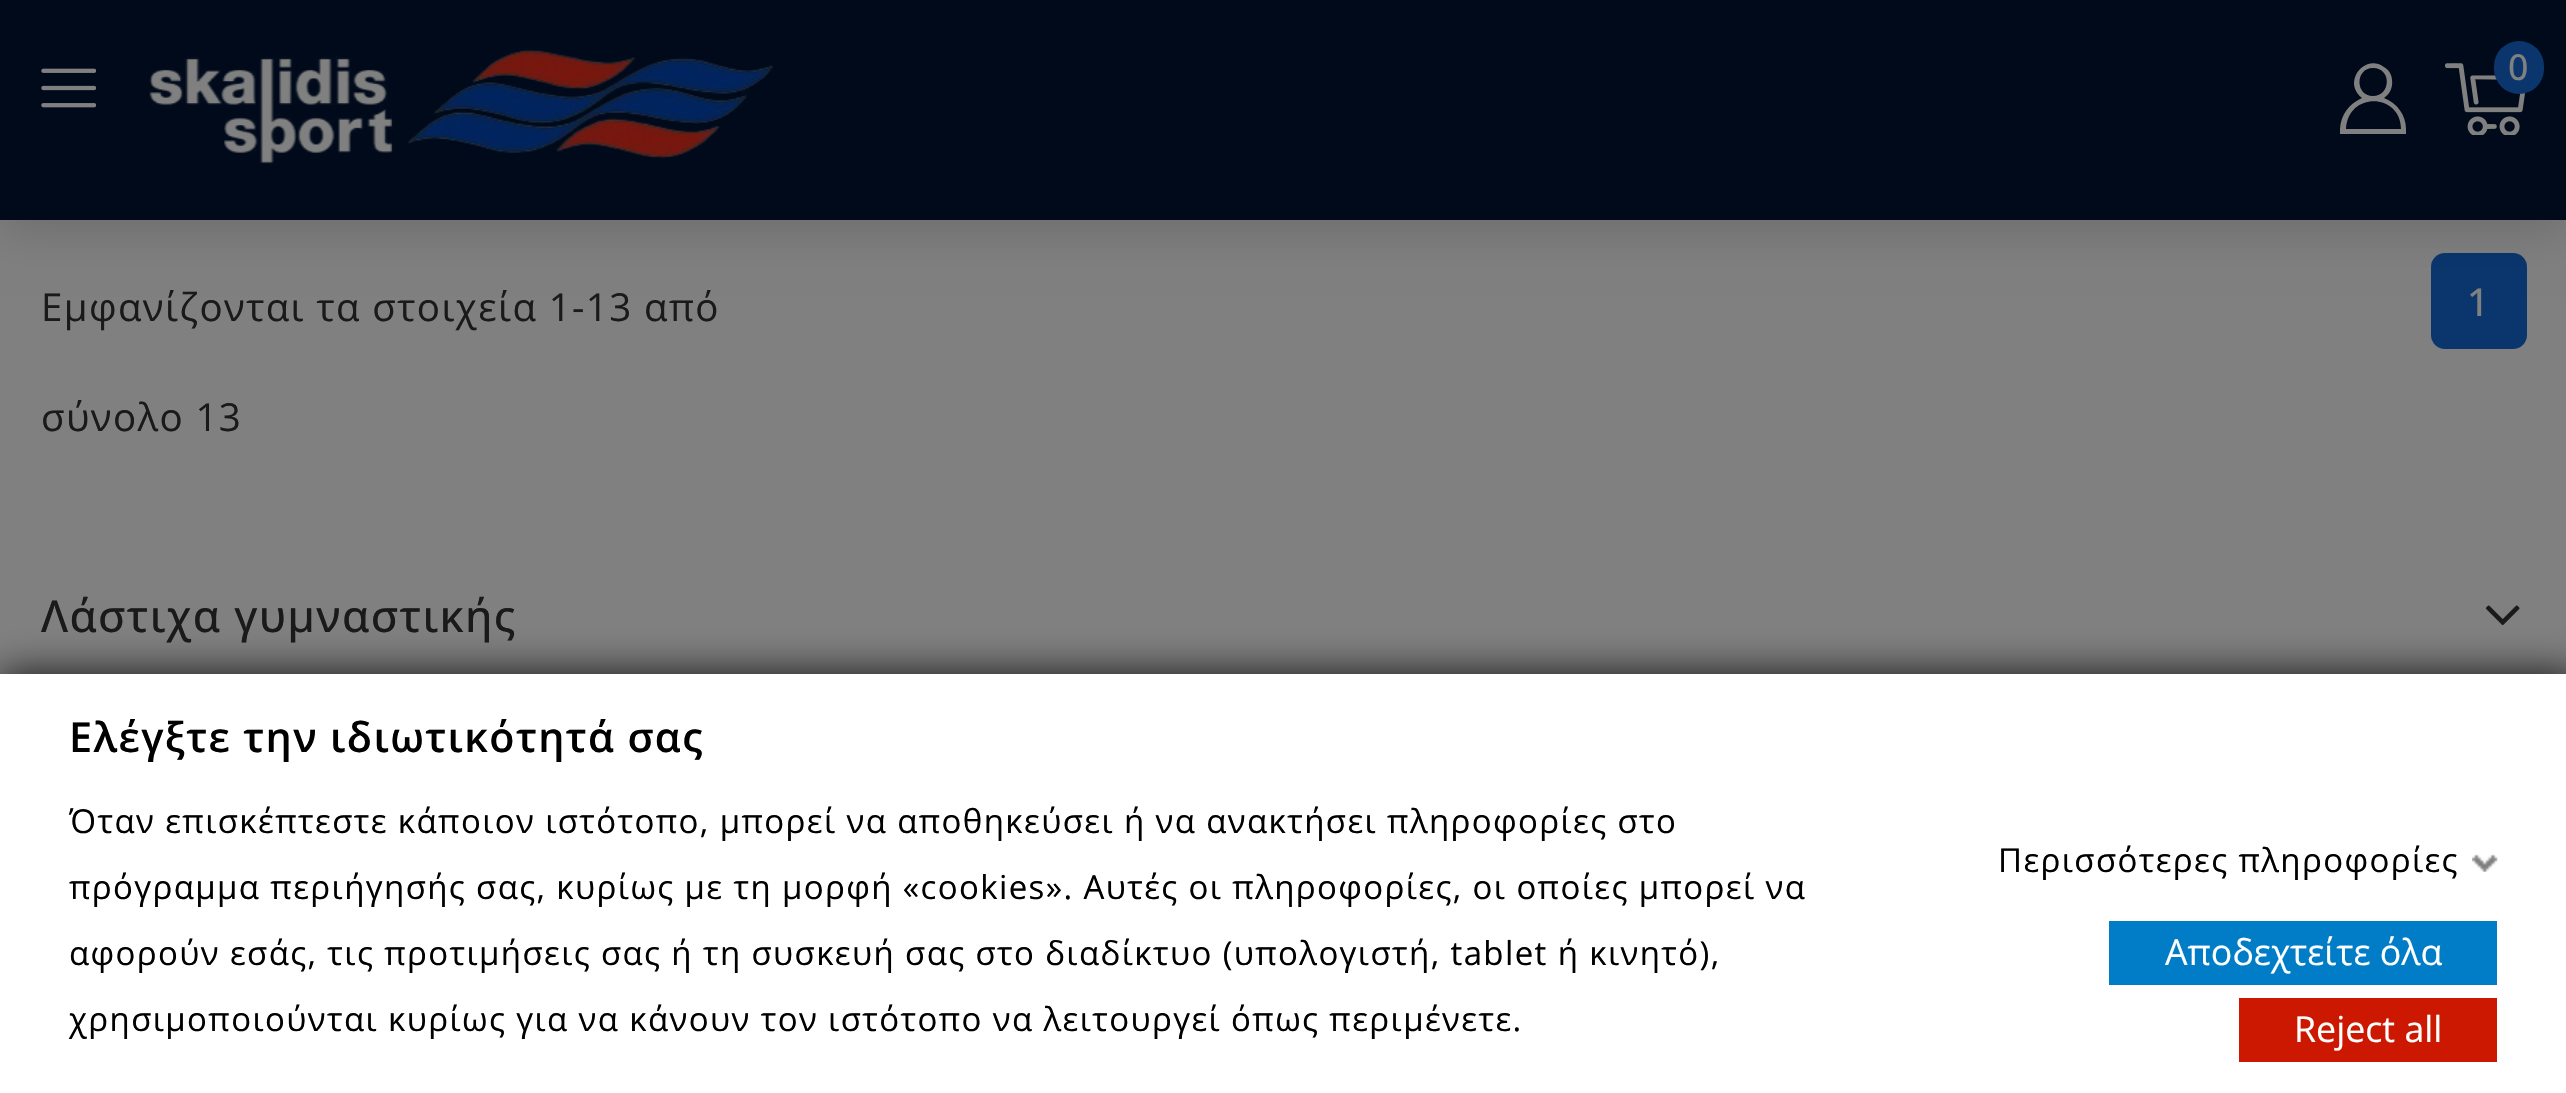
void draw(SkCanvas* canvas) {
	SkPaint paint;
	paint.setAntiAlias(true);
	auto spacedText = [&](const char* s, float x, float y, const SkFont& font, const SkPaint& ink, float letter, float word) {
		std::vector<SkGlyphID> glyphs(font.countText(s, strlen(s), SkTextEncoding::kUTF8));
		std::vector<float> xs(glyphs.size());
		font.textToGlyphs(s, strlen(s), SkTextEncoding::kUTF8, glyphs);
		font.getXPos(glyphs, xs, x);
		float extra = 0;
		for (size_t i = 0; i < glyphs.size(); i++) {
			xs[i] += extra;
			extra += letter + word * (glyphs[i] == font.unicharToGlyph(' '));
		}
		canvas->drawTextBlob(SkTextBlob::MakeFromPosHGlyphs(glyphs, xs, y, font), 0, 0, ink);
	};
	auto svgPath = [&](const char* data, bool evenOdd = false) {
		SkPath result = *SkParsePath::FromSVGString(data);
		if (evenOdd) result.setFillType(SkPathFillType::kEvenOdd);
		return result;
	};
	canvas->clear(0xff808080);
	paint.setColor(0xff0a366d);
	canvas->drawRoundRect(SkRect::MakeXYWH(2431, 253, 96, 96), 14, 14, paint);
	paint.setColor(0x26000000);
	paint.setMaskFilter(SkMaskFilter::MakeBlur(kNormal_SkBlurStyle, 22));
	canvas->drawRect(SkRect::MakeXYWH(0, 11, 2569, 220), paint);
	paint.setMaskFilter(nullptr);
	paint.setColor(0xff000a1a);
	canvas->drawRect(SkRect::MakeXYWH(0, 0, 2566, 220), paint);
	canvas->drawImageRect(SkImages::DeferredFromEncodedData(SkData::MakeFromFileName("img1.png")), SkRect::MakeXYWH(41, 68, 55, 40), SkSamplingOptions());
	canvas->drawImageRect(SkImages::DeferredFromEncodedData(SkData::MakeFromFileName("img2.png")), SkRect::MakeXYWH(149, 49, 624, 115), SkSamplingOptions());
	paint.setColor(0xff808080);
	canvas->drawPath(svgPath("M2401 129C2401 93 2348 91 2346 129H2340C2341 114 2349 104 2362 98C2342 83 2364 53 2384 67C2389 70 2392 75 2392 80C2393 87 2390 94 2384 98C2397 103 2406 115 2406 129ZM2373 68C2355 68 2355 96 2373 96C2391 96 2392 68 2373 68Z"), paint);
	canvas->drawRect(SkRect::MakeXYWH(2340, 129, 66, 5), paint);
	canvas->drawImageRect(SkImages::DeferredFromEncodedData(SkData::MakeFromFileName("img3.png")), SkRect::MakeXYWH(2445, 63, 80, 72), SkSamplingOptions());
	paint.setColor(0xff0a366d);
	canvas->drawRoundRect(SkRect::MakeXYWH(2494, 41, 50, 53), 25, 25, paint);
	SkFont f1(fontMgr->matchFamilyStyle("Open Sans", SkFontStyle(500, SkFontStyle::kNormal_Width, SkFontStyle::kUpright_Slant)), 35.75);
	f1.setSubpixel(true);
	paint.setColor(0xff808080);
	spacedText("0", 2508, 80, f1, paint, 1.38, 0);
	SkFont f2(fontMgr->matchFamilyStyle("Open Sans", SkFontStyle::Normal()), 38.5);
	f2.setSubpixel(true);
	paint.setColor(0xff1a1a1a);
	spacedText("Εμφανίζονται τα στοιχεία 1-13 από", 41, 321, f2, paint, 1.38, 0);
	spacedText("σύνολο 13", 41, 431, f2, paint, 1.38, 0);
	SkFont f3(fontMgr->matchFamilyStyle("Open Sans", SkFontStyle(500, SkFontStyle::kNormal_Width, SkFontStyle::kUpright_Slant)), 38.5);
	f3.setSubpixel(true);
	paint.setColor(0xff808080);
	spacedText("1", 2467, 316, f3, paint, 1.38, 0);
	SkFont f4(fontMgr->matchFamilyStyle("Open Sans", SkFontStyle(500, SkFontStyle::kNormal_Width, SkFontStyle::kUpright_Slant)), 44);
	f4.setSubpixel(true);
	paint.setColor(0xff1a1a1a);
	spacedText("Λάστιχα γυμναστικής", 41, 632, f4, paint, 1.38, 0);
	canvas->drawImageRect(SkImages::DeferredFromEncodedData(SkData::MakeFromFileName("img4.png")), SkRect::MakeXYWH(2485, 605, 35, 21), SkSamplingOptions());
	paint.setColor(0xff121212);
	paint.setMaskFilter(SkMaskFilter::MakeBlur(kNormal_SkBlurStyle, 19));
	canvas->drawRect(SkRect::MakeXYWH(0, 674, 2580, 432), paint);
	paint.setMaskFilter(nullptr);
	paint.setColor(0xffffffff);
	canvas->drawRect(SkRect::MakeXYWH(0, 674, 2566, 419), paint);
	SkFont f5(fontMgr->matchFamilyStyle("Open Sans", SkFontStyle(600, SkFontStyle::kNormal_Width, SkFontStyle::kUpright_Slant)), 41.25);
	f5.setSubpixel(true);
	paint.setColor(0xff000000);
	spacedText("Ελέγξτε την ιδιωτικότητά σας", 69, 752, f5, paint, 1.38, 0);
	SkFont f6(fontMgr->matchFamilyStyle("Open Sans", SkFontStyle::Normal()), 33);
	f6.setSubpixel(true);
	spacedText("Όταν επισκέπτεστε κάποιον ιστότοπο, μπορεί να αποθηκεύσει ή να ανακτήσει πληροφορίες στο", 69, 833, f6, paint, 1.38, 0);
	spacedText("πρόγραμμα περιήγησής σας, κυρίως με τη μορφή «cookies». Αυτές οι πληροφορίες, οι οποίες μπορεί να", 69, 899, f6, paint, 1.38, 0);
	spacedText("αφορούν εσάς, τις προτιμήσεις σας ή τη συσκευή σας στο διαδίκτυο (υπολογιστή, tablet ή κινητό),", 69, 965, f6, paint, 1.38, 0);
	spacedText("χρησιμοποιούνται κυρίως για να κάνουν τον ιστότοπο να λειτουργεί όπως περιμένετε.", 69, 1031, f6, paint, 1.38, 0);
	spacedText("Περισσότερες πληροφορίες", 1998, 872, f6, paint, 1.38, 0);
	canvas->drawImageRect(SkImages::DeferredFromEncodedData(SkData::MakeFromFileName("img5.png")), SkRect::MakeXYWH(2472, 854, 26, 18), SkSamplingOptions());
	paint.setColor(0xff007dc6);
	canvas->drawRect(SkRect::MakeXYWH(2109, 921, 388, 64), paint);
	SkFont f7(fontMgr->matchFamilyStyle("Open Sans", SkFontStyle::Normal()), 35.75);
	f7.setSubpixel(true);
	paint.setColor(0xffffffff);
	canvas->drawString("Αποδεχτείτε όλα", 2165, 965, f7, paint);
	paint.setColor(0xffcc1800);
	canvas->drawRect(SkRect::MakeXYWH(2239, 998, 258, 64), paint);
	paint.setColor(0xffffffff);
	canvas->drawString("Reject all", 2294, 1042, f7, paint);
}
